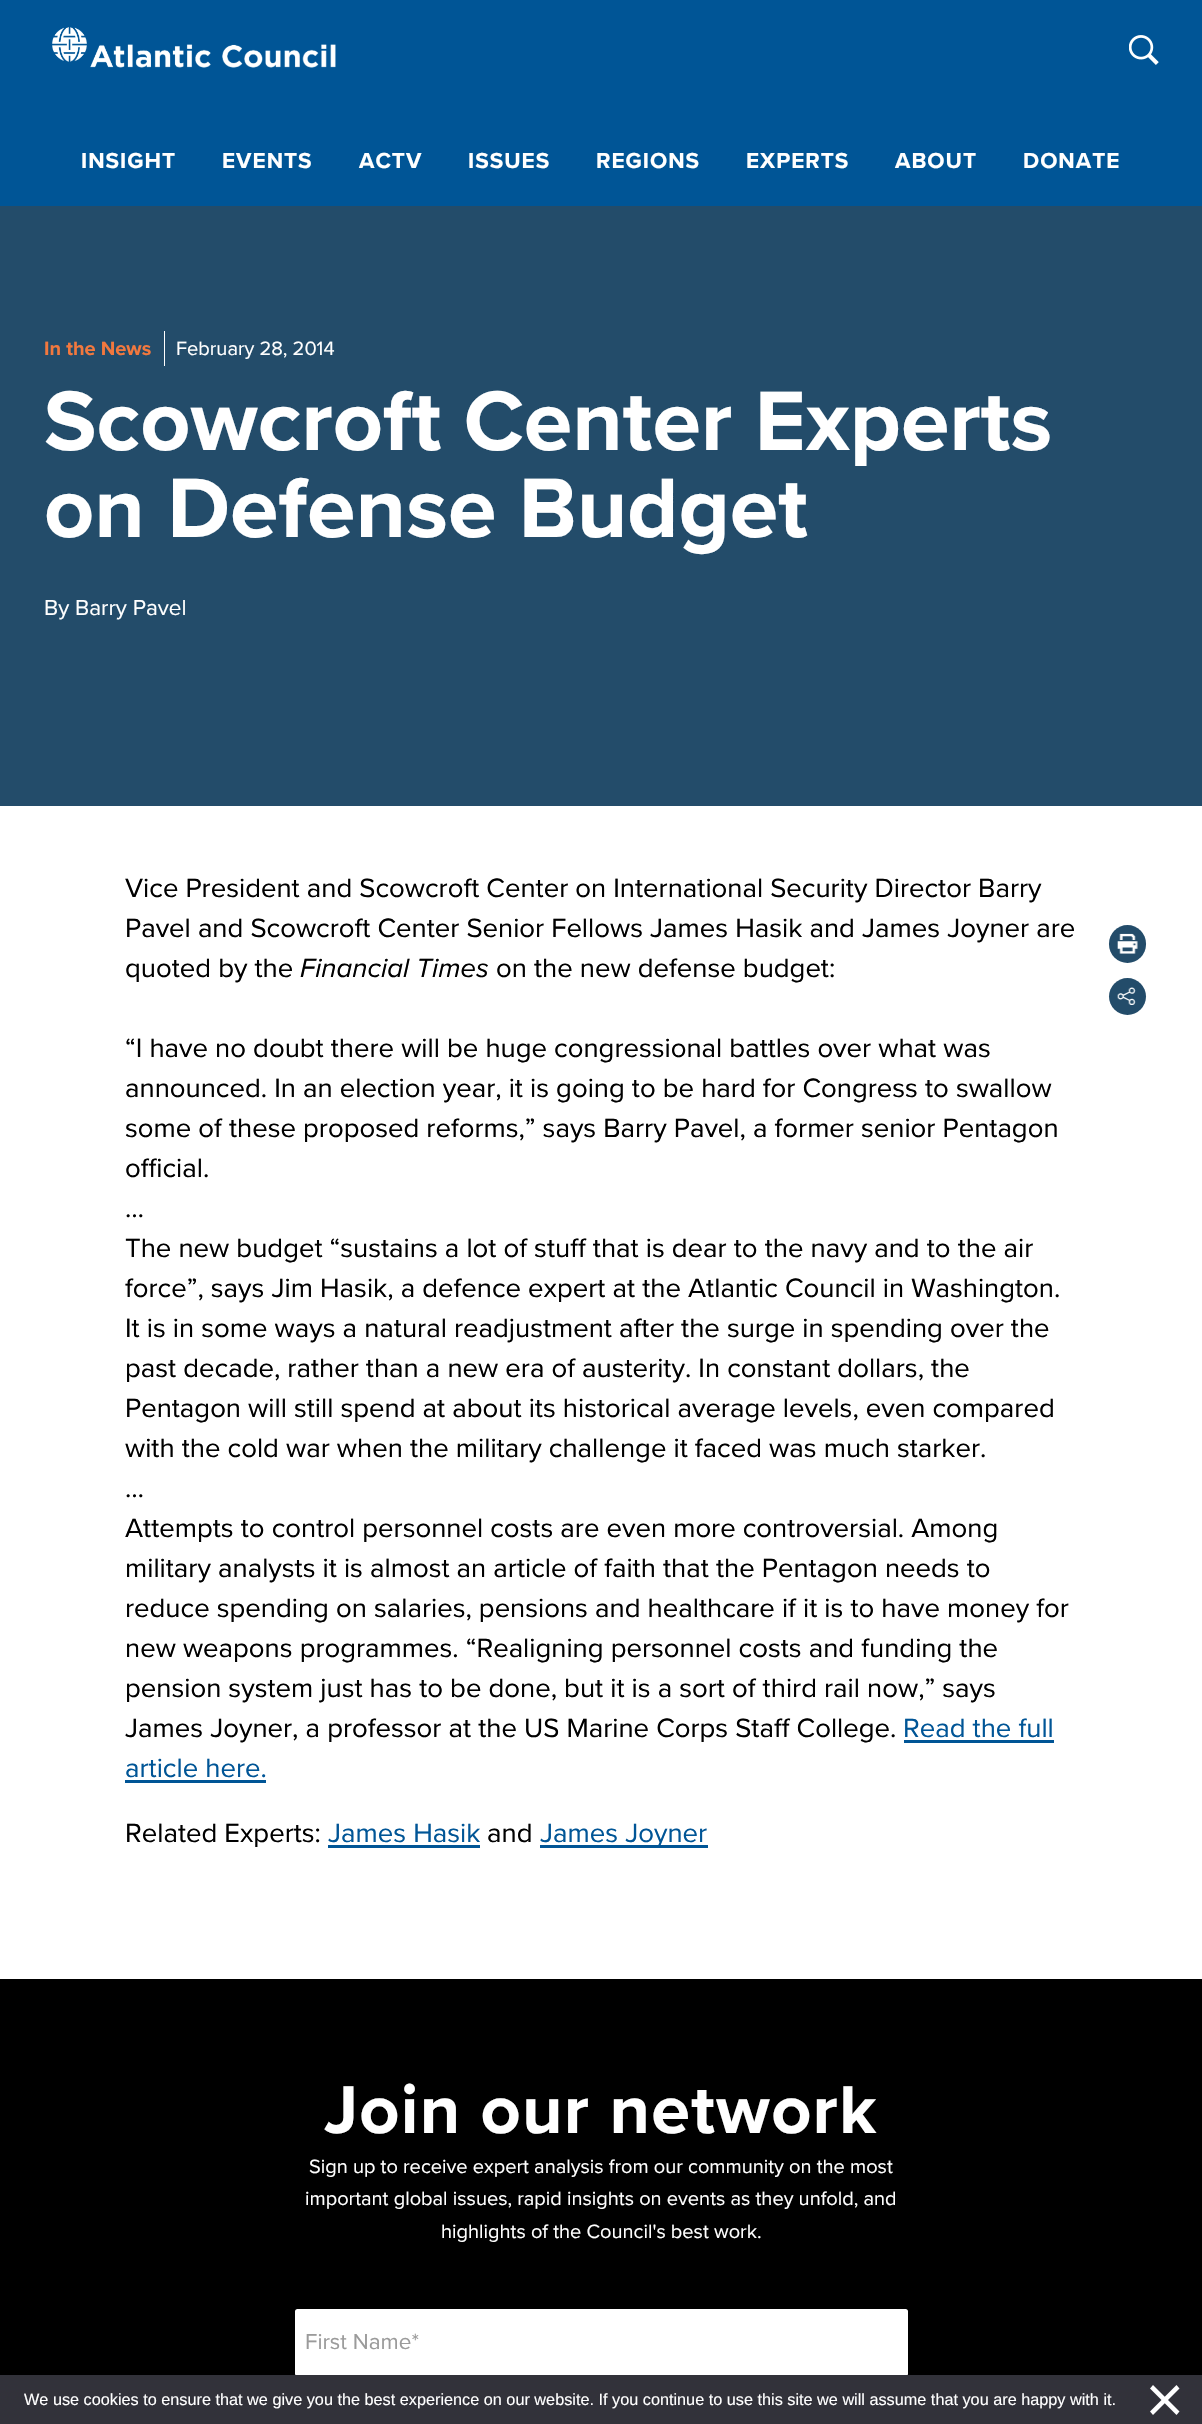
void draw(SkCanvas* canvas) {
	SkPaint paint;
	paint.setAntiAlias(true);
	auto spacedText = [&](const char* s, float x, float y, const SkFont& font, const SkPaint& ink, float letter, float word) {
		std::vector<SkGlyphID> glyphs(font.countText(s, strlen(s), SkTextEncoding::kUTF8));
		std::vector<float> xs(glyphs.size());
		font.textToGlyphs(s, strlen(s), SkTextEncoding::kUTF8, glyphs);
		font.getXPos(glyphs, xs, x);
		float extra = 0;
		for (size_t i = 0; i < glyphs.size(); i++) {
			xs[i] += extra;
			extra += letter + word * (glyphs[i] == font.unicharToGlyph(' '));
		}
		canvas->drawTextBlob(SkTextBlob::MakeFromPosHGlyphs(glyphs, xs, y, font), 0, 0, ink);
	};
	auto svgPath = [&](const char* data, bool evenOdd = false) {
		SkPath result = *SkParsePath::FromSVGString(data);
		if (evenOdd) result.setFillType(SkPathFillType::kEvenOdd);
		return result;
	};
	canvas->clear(0xffffffff);
	paint.setColor(0xff005596);
	canvas->drawRect(SkRect::MakeXYWH(0, 0, 1202, 206), paint);
	canvas->drawImageRect(SkImages::DeferredFromEncodedData(SkData::MakeFromFileName("img1.png")), SkRect::MakeXYWH(52, 27, 284, 41), SkSamplingOptions());
	canvas->drawImageRect(SkImages::DeferredFromEncodedData(SkData::MakeFromFileName("img2.png")), SkRect::MakeXYWH(1129, 35, 30, 30), SkSamplingOptions());
	SkFont f1(fontMgr->matchFamilyStyle("Proxima Nova", SkFontStyle::Bold()), 22.5);
	f1.setSubpixel(true);
	paint.setColor(0xffffffff);
	spacedText("INSIGHT", 81, 168, f1, paint, 1, 0);
	spacedText("EVENTS", 222, 168, f1, paint, 1, 0);
	spacedText("ACTV", 359, 168, f1, paint, 1, 0);
	spacedText("ISSUES", 468, 168, f1, paint, 1, 0);
	spacedText("REGIONS", 596, 168, f1, paint, 1, 0);
	spacedText("EXPERTS", 746, 168, f1, paint, 1, 0);
	spacedText("ABOUT", 895, 168, f1, paint, 1, 0);
	spacedText("DONATE", 1023, 168, f1, paint, 1, 0);
	paint.setColor(0xff234c6a);
	canvas->drawRect(SkRect::MakeXYWH(0, 206, 1202, 600), paint);
	SkFont f2(fontMgr->matchFamilyStyle("Proxima Nova", SkFontStyle::Bold()), 20);
	f2.setSubpixel(true);
	paint.setColor(0xfff2783e);
	canvas->drawString("In the News", 44, 355, f2, paint);
	paint.setColor(0xffffffff);
	canvas->drawRect(SkRect::MakeXYWH(164, 331, 1, 35), paint);
	SkFont f3(fontMgr->matchFamilyStyle("Proxima Nova", SkFontStyle::Normal()), 20);
	f3.setSubpixel(true);
	canvas->drawString("February 28, 2014", 176, 355, f3, paint);
	SkFont f4(fontMgr->matchFamilyStyle("Proxima Nova", SkFontStyle::Bold()), 87.5);
	f4.setSubpixel(true);
	canvas->drawString("Scowcroft Center Experts", 44, 450, f4, paint);
	canvas->drawString("on Defense Budget", 44, 537, f4, paint);
	SkFont f5(fontMgr->matchFamilyStyle("Proxima Nova", SkFontStyle::Normal()), 22.5);
	f5.setSubpixel(true);
	canvas->drawString("By Barry Pavel", 44, 615, f5, paint);
	SkFont f6(fontMgr->matchFamilyStyle("Proxima Nova", SkFontStyle::Normal()), 27.5);
	f6.setSubpixel(true);
	paint.setColor(0xff000000);
	canvas->drawString("Vice President and Scowcroft Center on International Security Director Barry", 125, 897, f6, paint);
	canvas->drawString("Pavel and Scowcroft Center Senior Fellows James Hasik and James Joyner are", 125, 937, f6, paint);
	canvas->drawString("quoted by the", 125, 977, f6, paint);
	SkFont f7(fontMgr->matchFamilyStyle("Proxima Nova", SkFontStyle::Italic()), 27.5);
	f7.setSubpixel(true);
	canvas->drawString("Financial Times", 300, 977, f7, paint);
	canvas->drawString("on the new defense budget:", 496, 977, f6, paint);
	canvas->drawString("“I have no doubt there will be huge congressional battles over what was", 125, 1057, f6, paint);
	canvas->drawString("announced. In an election year, it is going to be hard for Congress to swallow", 125, 1097, f6, paint);
	canvas->drawString("some of these proposed reforms,” says Barry Pavel, a former senior Pentagon", 125, 1137, f6, paint);
	canvas->drawString("official.", 125, 1177, f6, paint);
	canvas->drawString("…", 125, 1217, f6, paint);
	canvas->drawString("The new budget “sustains a lot of stuff that is dear to the navy and to the air", 125, 1257, f6, paint);
	canvas->drawString("force”, says Jim Hasik, a defence expert at the Atlantic Council in Washington.", 125, 1297, f6, paint);
	canvas->drawString("It is in some ways a natural readjustment after the surge in spending over the", 125, 1337, f6, paint);
	canvas->drawString("past decade, rather than a new era of austerity. In constant dollars, the", 125, 1377, f6, paint);
	canvas->drawString("Pentagon will still spend at about its historical average levels, even compared", 125, 1417, f6, paint);
	canvas->drawString("with the cold war when the military challenge it faced was much starker.", 125, 1457, f6, paint);
	canvas->drawString("…", 125, 1497, f6, paint);
	canvas->drawString("Attempts to control personnel costs are even more controversial. Among", 125, 1537, f6, paint);
	canvas->drawString("military analysts it is almost an article of faith that the Pentagon needs to", 125, 1577, f6, paint);
	canvas->drawString("reduce spending on salaries, pensions and healthcare if it is to have money for", 125, 1617, f6, paint);
	canvas->drawString("new weapons programmes. “Realigning personnel costs and funding the", 125, 1657, f6, paint);
	canvas->drawString("pension system just has to be done, but it is a sort of third rail now,” says", 125, 1697, f6, paint);
	canvas->drawString("James Joyner, a professor at the US Marine Corps Staff College.", 125, 1737, f6, paint);
	paint.setColor(0xff005596);
	canvas->drawString("Read the full", 903, 1737, f6, paint);
	canvas->drawRect(SkRect::MakeXYWH(904, 1740, 150, 3), paint);
	canvas->drawString("article here.", 125, 1777, f6, paint);
	canvas->drawRect(SkRect::MakeXYWH(125, 1780, 141, 3), paint);
	paint.setColor(0xff000000);
	canvas->drawString("Related Experts:", 125, 1842, f6, paint);
	paint.setColor(0xff005596);
	canvas->drawString("James Hasik", 328, 1842, f6, paint);
	canvas->drawRect(SkRect::MakeXYWH(328, 1845, 152, 3), paint);
	paint.setColor(0xff000000);
	canvas->drawString("and", 487, 1842, f6, paint);
	paint.setColor(0xff005596);
	canvas->drawRect(SkRect::MakeXYWH(540, 1845, 168, 3), paint);
	canvas->drawString("James Joyner", 540, 1842, f6, paint);
	paint.setColor(0xff234c6a);
	canvas->drawRoundRect(SkRect::MakeXYWH(1109, 925, 37, 38), 18.5, 18.5, paint);
	canvas->drawImageRect(SkImages::DeferredFromEncodedData(SkData::MakeFromFileName("img3.png")), SkRect::MakeXYWH(1117, 933, 21, 21), SkSamplingOptions());
	canvas->drawCircle(1127.5, 996.5, 18.5, paint);
	canvas->drawImageRect(SkImages::DeferredFromEncodedData(SkData::MakeFromFileName("img4.png")), SkRect::MakeXYWH(1117, 987, 19, 18), SkSamplingOptions());
	paint.setColor(0xff000000);
	canvas->drawRect(SkRect::MakeXYWH(0, 1979, 1202, 396), paint);
	SkFont f8(fontMgr->matchFamilyStyle("Proxima Nova", SkFontStyle::Bold()), 70);
	f8.setSubpixel(true);
	paint.setColor(0xffffffff);
	spacedText("Join our network", 324, 2133, f8, paint, 1.25, 0);
	canvas->drawString("Sign up to receive expert analysis from our community on the most", 309, 2173, f3, paint);
	canvas->drawString("important global issues, rapid insights on events as they unfold, and", 305, 2205, f3, paint);
	canvas->drawString("highlights of the Council's best work.", 441, 2238, f3, paint);
	canvas->drawRoundRect(SkRect::MakeXYWH(295, 2309, 613, 67), 2.5, 2.5, paint);
	paint.setColor(0xff9b9b9b);
	canvas->drawString("First Name*", 305, 2349, f5, paint);
	paint.setColor(0xff32323a);
	canvas->drawRect(SkRect::MakeXYWH(0, 2375, 1202, 49), paint);
	SkFont f9(fontMgr->matchFamilyStyle("Liberation Sans", SkFontStyle::Normal()), 16.25);
	f9.setSubpixel(true);
	paint.setColor(0xffffffff);
	canvas->drawString("We use cookies to ensure that we give you the best experience on our website. If you continue to use this site we will assume that you are happy with it.", 24, 2405, f9, paint);
	canvas->drawPath(svgPath("M1176.5 2385L1179.5 2388.5L1153 2415L1150 2411.5Z"), paint);
	canvas->drawPath(svgPath("M1150 2388.5L1153 2385L1179.5 2411.5L1176.5 2415Z"), paint);
}
